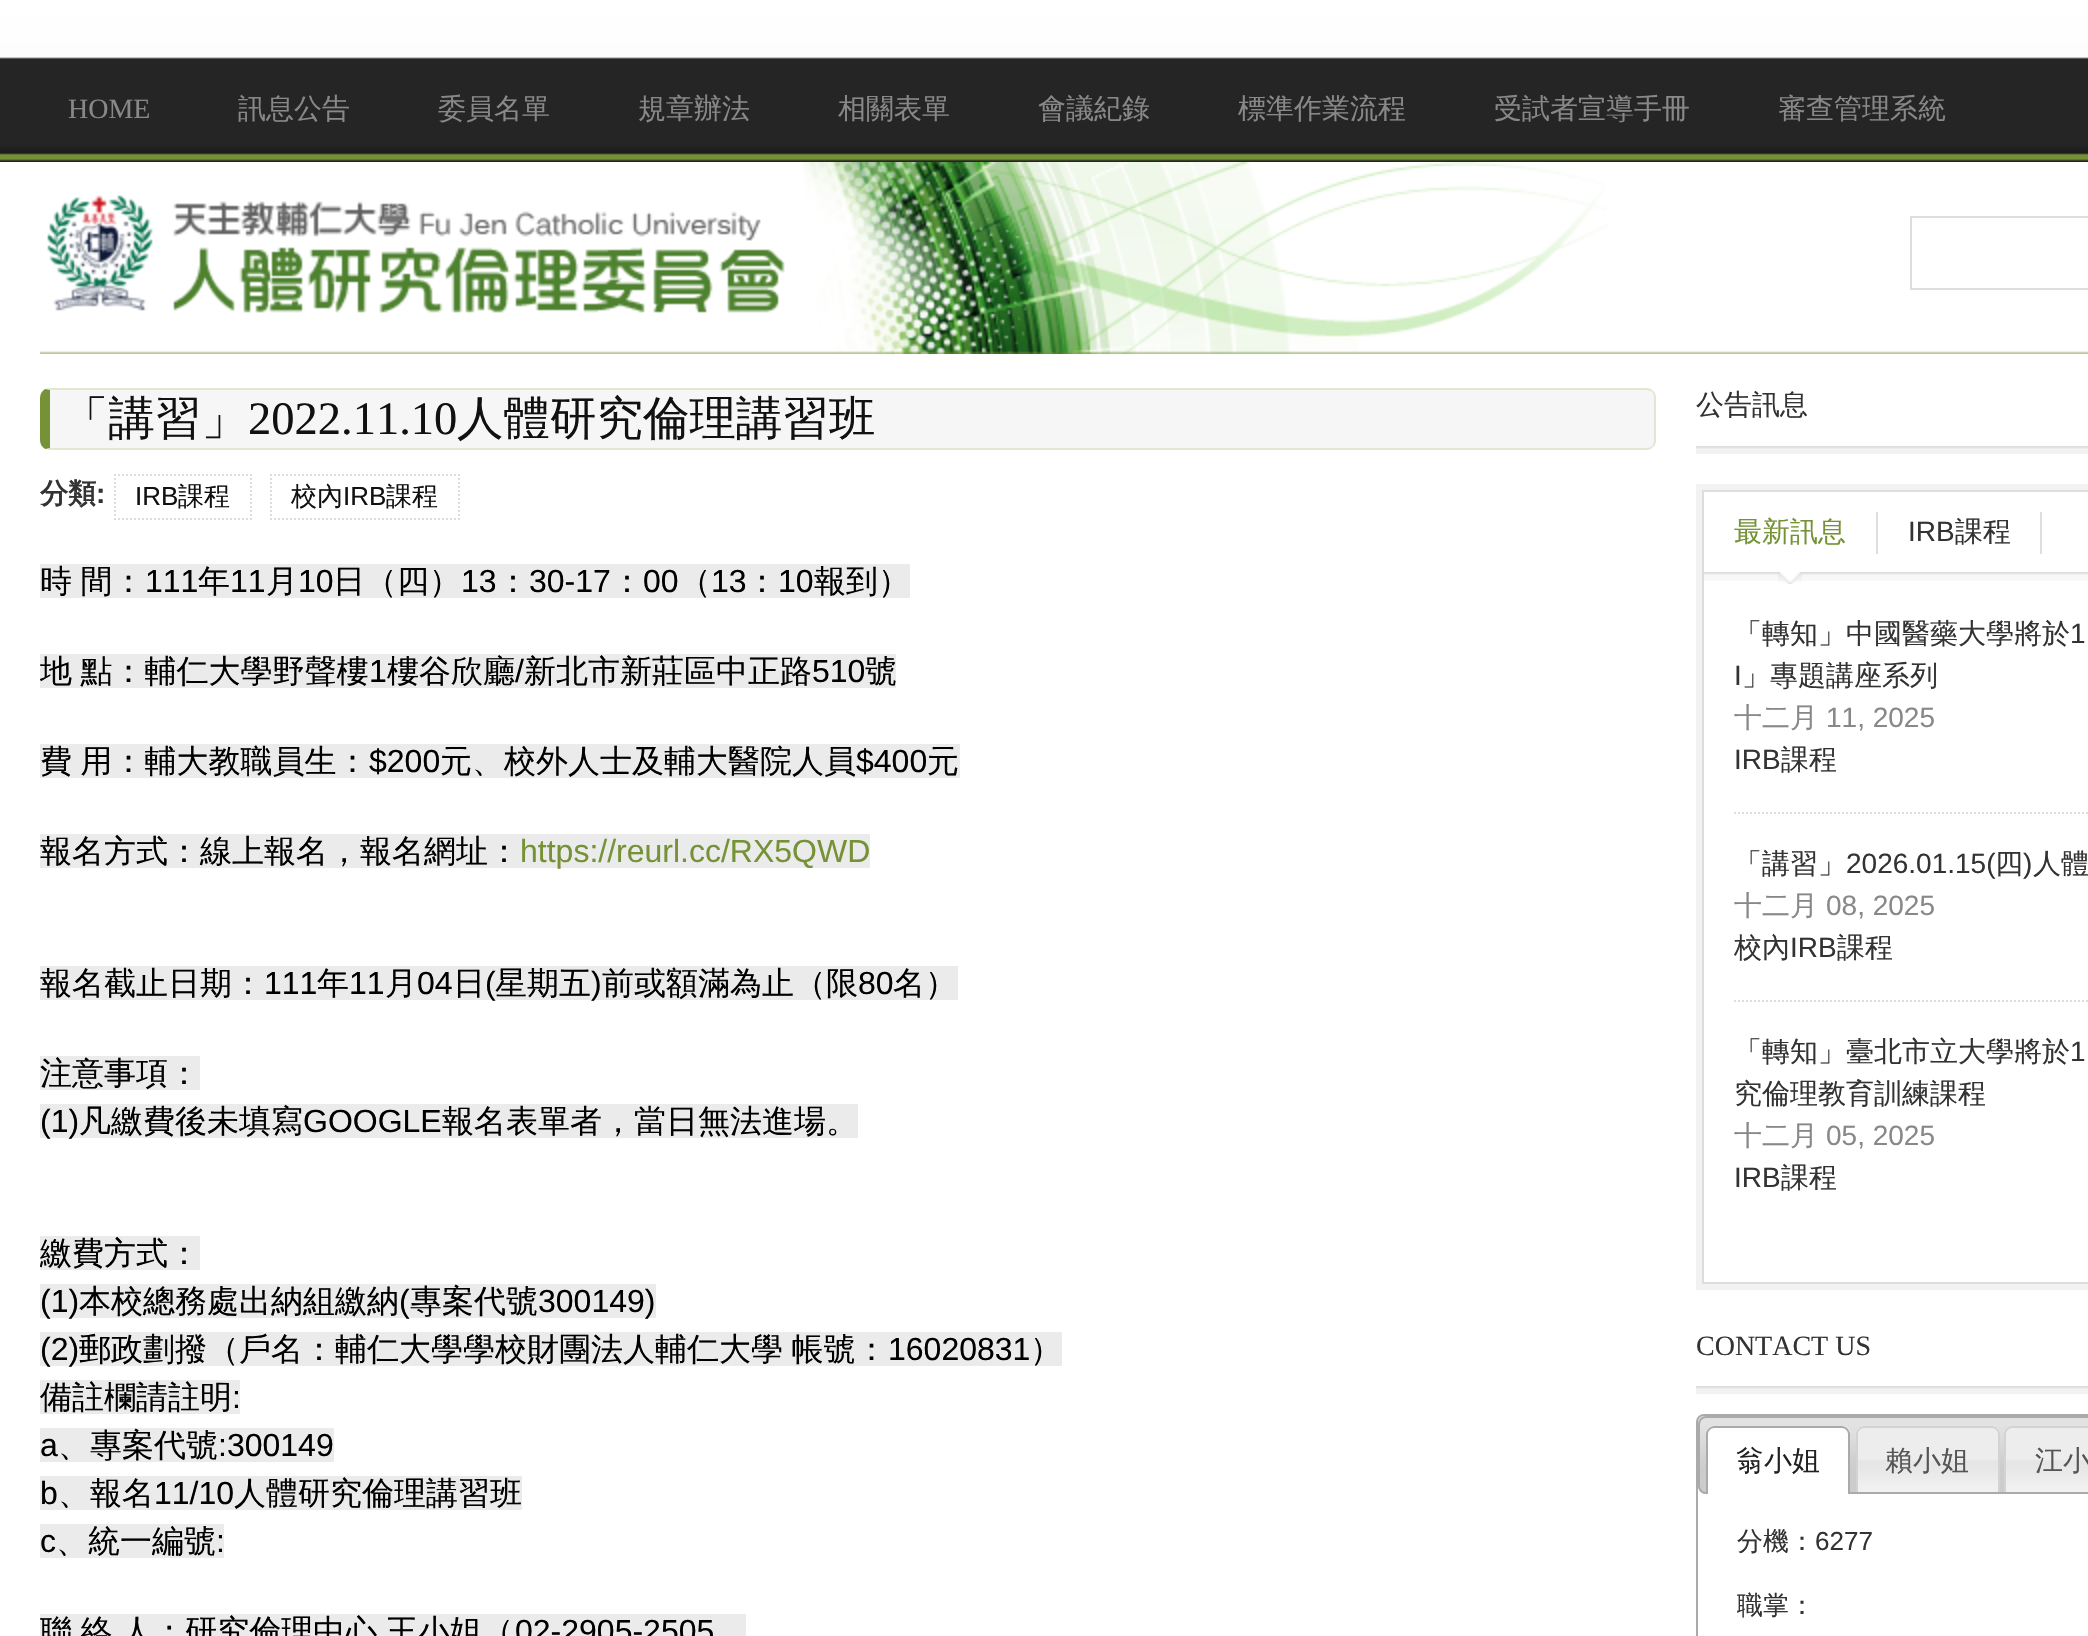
void draw(SkCanvas* canvas) {
	SkPaint paint;
	paint.setAntiAlias(true);
	auto spacedText = [&](const char* s, float x, float y, const SkFont& font, const SkPaint& ink, float letter, float word) {
		std::vector<SkGlyphID> glyphs(font.countText(s, strlen(s), SkTextEncoding::kUTF8));
		std::vector<float> xs(glyphs.size());
		font.textToGlyphs(s, strlen(s), SkTextEncoding::kUTF8, glyphs);
		font.getXPos(glyphs, xs, x);
		float extra = 0;
		for (size_t i = 0; i < glyphs.size(); i++) {
			xs[i] += extra;
			extra += letter + word * (glyphs[i] == font.unicharToGlyph(' '));
		}
		canvas->drawTextBlob(SkTextBlob::MakeFromPosHGlyphs(glyphs, xs, y, font), 0, 0, ink);
	};
	auto svgPath = [&](const char* data, bool evenOdd = false) {
		SkPath result = *SkParsePath::FromSVGString(data);
		if (evenOdd) result.setFillType(SkPathFillType::kEvenOdd);
		return result;
	};
	canvas->clear(0xffffffff);
	canvas->drawImageRect(SkImages::DeferredFromEncodedData(SkData::MakeFromFileName("img1.png")), SkRect::MakeXYWH(0, 0, 2088, 59), SkSamplingOptions());
	canvas->drawImageRect(SkImages::DeferredFromEncodedData(SkData::MakeFromFileName("img2.png")), SkRect::MakeXYWH(0, 57, 2088, 105), SkSamplingOptions());
	SkFont f1(fontMgr->matchFamilyStyle("Liberation Serif", SkFontStyle::Normal()), 28);
	f1.setSubpixel(true);
	paint.setColor(0xff888888);
	canvas->drawString("HOME", 68, 118, f1, paint);
	SkFont f2(fontMgr->matchFamilyStyle("WenQuanYi Zen Hei", SkFontStyle(500, SkFontStyle::kNormal_Width, SkFontStyle::kUpright_Slant)), 28);
	f2.setSubpixel(true);
	canvas->drawString("訊息公告", 238, 118, f2, paint);
	canvas->drawString("委員名單", 438, 118, f2, paint);
	canvas->drawString("規章辦法", 638, 118, f2, paint);
	canvas->drawString("相關表單", 838, 118, f2, paint);
	canvas->drawString("會議紀錄", 1038, 118, f2, paint);
	canvas->drawString("標準作業流程", 1238, 118, f2, paint);
	canvas->drawString("受試者宣導手冊", 1494, 118, f2, paint);
	canvas->drawString("審查管理系統", 1778, 118, f2, paint);
	canvas->drawImageRect(SkImages::DeferredFromEncodedData(SkData::MakeFromFileName("img3.png")), SkRect::MakeXYWH(40, 162, 2048, 192), SkSamplingOptions());
	canvas->drawImageRect(SkImages::DeferredFromEncodedData(SkData::MakeFromFileName("img4.png")), SkRect::MakeXYWH(47, 195, 738, 119), SkSamplingOptions());
	paint.setStroke(true);
	paint.setStrokeWidth(2);
	paint.setColor(0xffdddddd);
	canvas->drawRect(SkRect::MakeXYWH(1911, 217, 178, 72), paint);
	paint.setStroke(false);
	paint.setColor(0xfff6f6f6);
	canvas->drawPath(svgPath("M50 390H1646C1650 390 1654 394 1654 398V440C1654 444 1650 448 1646 448H50Z"), paint);
	paint.setColor(0xffe0e8d1);
	canvas->drawPath(svgPath("M50 388L45 389L50 390H1646C1648 390 1650 391 1652 392L1653 391C1652 389 1649 388 1646 388Z"), paint);
	canvas->drawPath(svgPath("M1656 440V398C1656 395 1655 392 1653 391L1652 392C1653 394 1654 396 1654 398V440C1654 442 1653 444 1652 446L1653 447C1655 446 1656 443 1656 440Z"), paint);
	canvas->drawPath(svgPath("M50 450H1646C1649 450 1652 449 1653 447L1652 446C1650 447 1648 448 1646 448H50L45 449Z"), paint);
	paint.setColor(0xff759236);
	canvas->drawPath(svgPath("M50 390L45 389C42 391 40 394 40 398V440C40 444 42 447 45 449L50 448Z"), paint);
	SkFont f3(fontMgr->matchFamilyStyle("WenQuanYi Zen Hei", SkFontStyle(500, SkFontStyle::kNormal_Width, SkFontStyle::kUpright_Slant)), 46.5);
	f3.setSubpixel(true);
	paint.setColor(0xff111111);
	canvas->drawString("「講習」", 62, 434, f3, paint);
	SkFont f4(fontMgr->matchFamilyStyle("Liberation Serif", SkFontStyle::Normal()), 46.5);
	f4.setSubpixel(true);
	canvas->drawString("2022.11.10", 248, 434, f4, paint);
	canvas->drawString("人體研究倫理講習班", 457, 434, f3, paint);
	SkFont f5(fontMgr->matchFamilyStyle("WenQuanYi Zen Hei", SkFontStyle::Bold()), 28);
	f5.setSubpixel(true);
	paint.setColor(0xff333333);
	canvas->drawString("分類", 40, 503, f5, paint);
	SkFont f6(fontMgr->matchFamilyStyle("Liberation Sans", SkFontStyle::Bold()), 28);
	f6.setSubpixel(true);
	canvas->drawString(":", 96, 503, f6, paint);
	paint.setStroke(true);
	paint.setColor(0xffdddddd);
	paint.setPathEffect(SkDashPathEffect::Make({{2, 2}}, 0));
	canvas->drawPath(svgPath("M114 475H252"), paint);
	paint.setPathEffect(nullptr);
	paint.setPathEffect(SkDashPathEffect::Make({{2, 2}}, 0));
	canvas->drawPath(svgPath("M251 474V520"), paint);
	paint.setPathEffect(nullptr);
	paint.setPathEffect(SkDashPathEffect::Make({{2, 2}}, 0));
	canvas->drawPath(svgPath("M114 519H252"), paint);
	paint.setPathEffect(nullptr);
	paint.setPathEffect(SkDashPathEffect::Make({{2, 2}}, 0));
	canvas->drawPath(svgPath("M115 474V520"), paint);
	paint.setPathEffect(nullptr);
	SkFont f7(fontMgr->matchFamilyStyle("Liberation Sans", SkFontStyle::Normal()), 26);
	f7.setSubpixel(true);
	paint.setStroke(false);
	paint.setColor(0xff111111);
	canvas->drawString("IRB", 135, 505, f7, paint);
	SkFont f8(fontMgr->matchFamilyStyle("WenQuanYi Zen Hei", SkFontStyle(500, SkFontStyle::kNormal_Width, SkFontStyle::kUpright_Slant)), 26);
	f8.setSubpixel(true);
	canvas->drawString("課程", 178, 505, f8, paint);
	paint.setStroke(true);
	paint.setColor(0xffdddddd);
	paint.setPathEffect(SkDashPathEffect::Make({{2, 2}}, 0));
	canvas->drawPath(svgPath("M270 475H460"), paint);
	paint.setPathEffect(nullptr);
	paint.setPathEffect(SkDashPathEffect::Make({{2, 2}}, 0));
	canvas->drawPath(svgPath("M459 474V520"), paint);
	paint.setPathEffect(nullptr);
	paint.setPathEffect(SkDashPathEffect::Make({{2, 2}}, 0));
	canvas->drawPath(svgPath("M270 519H460"), paint);
	paint.setPathEffect(nullptr);
	paint.setPathEffect(SkDashPathEffect::Make({{2, 2}}, 0));
	canvas->drawPath(svgPath("M271 474V520"), paint);
	paint.setPathEffect(nullptr);
	paint.setStroke(false);
	paint.setColor(0xff111111);
	canvas->drawString("校內", 291, 505, f8, paint);
	canvas->drawString("IRB", 343, 505, f7, paint);
	canvas->drawString("課程", 386, 505, f8, paint);
	paint.setColor(0xffebebeb);
	canvas->drawRect(SkRect::MakeXYWH(40, 564, 870, 34), paint);
	SkFont f9(fontMgr->matchFamilyStyle("WenQuanYi Zen Hei", SkFontStyle(500, SkFontStyle::kNormal_Width, SkFontStyle::kUpright_Slant)), 32);
	f9.setSubpixel(true);
	paint.setColor(0xff000000);
	spacedText("時 間：", 40, 592, f9, paint, 0, -1);
	SkFont f10(fontMgr->matchFamilyStyle("Liberation Sans", SkFontStyle::Normal()), 32);
	f10.setSubpixel(true);
	canvas->drawString("111", 145, 592, f10, paint);
	canvas->drawString("年", 198, 592, f9, paint);
	canvas->drawString("11", 230, 592, f10, paint);
	canvas->drawString("月", 266, 592, f9, paint);
	canvas->drawString("10", 298, 592, f10, paint);
	canvas->drawString("日（四）", 333, 592, f9, paint);
	canvas->drawString("13", 461, 592, f10, paint);
	canvas->drawString("：", 497, 592, f9, paint);
	canvas->drawString("30-17", 529, 592, f10, paint);
	canvas->drawString("：", 611, 592, f9, paint);
	canvas->drawString("00", 643, 592, f10, paint);
	canvas->drawString("（", 679, 592, f9, paint);
	canvas->drawString("13", 711, 592, f10, paint);
	canvas->drawString("：", 746, 592, f9, paint);
	canvas->drawString("10", 778, 592, f10, paint);
	canvas->drawString("報到）", 814, 592, f9, paint);
	paint.setColor(0xffebebeb);
	canvas->drawRect(SkRect::MakeXYWH(40, 654, 856, 34), paint);
	paint.setColor(0xff000000);
	spacedText("地 點：輔仁大學野聲樓", 40, 682, f9, paint, 0, -1);
	canvas->drawString("1", 369, 682, f10, paint);
	canvas->drawString("樓谷欣廳", 387, 682, f9, paint);
	canvas->drawString("/", 515, 682, f10, paint);
	canvas->drawString("新北市新莊區中正路", 524, 682, f9, paint);
	canvas->drawString("510", 812, 682, f10, paint);
	canvas->drawString("號", 865, 682, f9, paint);
	paint.setColor(0xffebebeb);
	canvas->drawRect(SkRect::MakeXYWH(40, 744, 920, 34), paint);
	paint.setColor(0xff000000);
	spacedText("費 用：輔大教職員生：", 40, 772, f9, paint, 0, -1);
	canvas->drawString("$200", 369, 772, f10, paint);
	canvas->drawString("元、校外人士及輔大醫院人員", 440, 772, f9, paint);
	canvas->drawString("$400", 856, 772, f10, paint);
	canvas->drawString("元", 927, 772, f9, paint);
	paint.setColor(0xffebebeb);
	canvas->drawRect(SkRect::MakeXYWH(40, 834, 830, 34), paint);
	paint.setColor(0xff000000);
	canvas->drawString("報名方式：線上報名，報名網址：", 40, 862, f9, paint);
	paint.setColor(0xff759236);
	canvas->drawString("https://reurl.cc/RX5QWD", 520, 862, f10, paint);
	paint.setColor(0xffebebeb);
	canvas->drawRect(SkRect::MakeXYWH(40, 966, 918, 34), paint);
	paint.setColor(0xff000000);
	canvas->drawString("報名截止日期：", 40, 994, f9, paint);
	canvas->drawString("111", 264, 994, f10, paint);
	canvas->drawString("年", 317, 994, f9, paint);
	canvas->drawString("11", 349, 994, f10, paint);
	canvas->drawString("月", 385, 994, f9, paint);
	canvas->drawString("04", 417, 994, f10, paint);
	canvas->drawString("日", 453, 994, f9, paint);
	canvas->drawString("(", 485, 994, f10, paint);
	canvas->drawString("星期五", 495, 994, f9, paint);
	canvas->drawString(")", 591, 994, f10, paint);
	canvas->drawString("前或額滿為止（限", 602, 994, f9, paint);
	canvas->drawString("80", 858, 994, f10, paint);
	canvas->drawString("名）", 893, 994, f9, paint);
	paint.setColor(0xffebebeb);
	canvas->drawRect(SkRect::MakeXYWH(40, 1056, 160, 34), paint);
	paint.setColor(0xff000000);
	canvas->drawString("注意事項：", 40, 1084, f9, paint);
	paint.setColor(0xffebebeb);
	canvas->drawRect(SkRect::MakeXYWH(40, 1104, 818, 34), paint);
	paint.setColor(0xff000000);
	canvas->drawString("(1)", 40, 1132, f10, paint);
	canvas->drawString("凡繳費後未填寫", 79, 1132, f9, paint);
	canvas->drawString("GOOGLE", 303, 1132, f10, paint);
	canvas->drawString("報名表單者，當日無法進場。", 442, 1132, f9, paint);
	paint.setColor(0xffebebeb);
	canvas->drawRect(SkRect::MakeXYWH(40, 1236, 160, 34), paint);
	paint.setColor(0xff000000);
	canvas->drawString("繳費方式：", 40, 1264, f9, paint);
	paint.setColor(0xffebebeb);
	canvas->drawRect(SkRect::MakeXYWH(40, 1284, 616, 34), paint);
	paint.setColor(0xff000000);
	canvas->drawString("(1)", 40, 1312, f10, paint);
	canvas->drawString("本校總務處出納組繳納", 79, 1312, f9, paint);
	canvas->drawString("(", 399, 1312, f10, paint);
	canvas->drawString("專案代號", 410, 1312, f9, paint);
	canvas->drawString("300149)", 538, 1312, f10, paint);
	paint.setColor(0xffebebeb);
	canvas->drawRect(SkRect::MakeXYWH(40, 1332, 1022, 34), paint);
	paint.setColor(0xff000000);
	canvas->drawString("(2)", 40, 1360, f10, paint);
	spacedText("郵政劃撥（戶名：輔仁大學學校財團法人輔仁大學 帳號：", 79, 1360, f9, paint, 0, -1);
	canvas->drawString("16020831", 888, 1360, f10, paint);
	canvas->drawString("）", 1030, 1360, f9, paint);
	paint.setColor(0xffebebeb);
	canvas->drawRect(SkRect::MakeXYWH(40, 1380, 200, 34), paint);
	paint.setColor(0xff000000);
	canvas->drawString("備註欄請註明", 40, 1408, f9, paint);
	canvas->drawString(":", 232, 1408, f10, paint);
	paint.setColor(0xffebebeb);
	canvas->drawRect(SkRect::MakeXYWH(40, 1428, 294, 34), paint);
	paint.setColor(0xff000000);
	canvas->drawString("a", 40, 1456, f10, paint);
	canvas->drawString("、專案代號", 58, 1456, f9, paint);
	canvas->drawString(":300149", 218, 1456, f10, paint);
	paint.setColor(0xffebebeb);
	canvas->drawRect(SkRect::MakeXYWH(40, 1476, 482, 34), paint);
	paint.setColor(0xff000000);
	canvas->drawString("b", 40, 1504, f10, paint);
	canvas->drawString("、報名", 58, 1504, f9, paint);
	canvas->drawString("11/10", 154, 1504, f10, paint);
	canvas->drawString("人體研究倫理講習班", 234, 1504, f9, paint);
	paint.setColor(0xffebebeb);
	canvas->drawRect(SkRect::MakeXYWH(40, 1524, 184, 34), paint);
	paint.setColor(0xff000000);
	canvas->drawString("c", 40, 1552, f10, paint);
	canvas->drawString("、統一編號", 56, 1552, f9, paint);
	canvas->drawString(":", 216, 1552, f10, paint);
	paint.setColor(0xffebebeb);
	canvas->drawRect(SkRect::MakeXYWH(40, 1614, 706, 22), paint);
	paint.setColor(0xff000000);
	spacedText("聯 絡 人：研究倫理中心 王小姐（", 40, 1642, f9, paint, 0, -1);
	canvas->drawString("02-2905-2505", 515, 1642, f10, paint);
	canvas->drawImageRect(SkImages::DeferredFromEncodedData(SkData::MakeFromFileName("img5.png")), SkRect::MakeXYWH(1696, 446, 392, 8), SkSamplingOptions());
	paint.setColor(0xff333333);
	canvas->drawString("公告訊息", 1696, 414, f2, paint);
	paint.setColor(0xfff2f2f2);
	canvas->drawRect(SkRect::MakeXYWH(1696, 484, 392, 806), paint);
	paint.setColor(0xffffffff);
	canvas->drawRect(SkRect::MakeXYWH(1704, 492, 384, 790), paint);
	canvas->drawImageRect(SkImages::DeferredFromEncodedData(SkData::MakeFromFileName("img6.png")), SkRect::MakeXYWH(1704, 572, 384, 9), SkSamplingOptions());
	paint.setColor(0xffdddddd);
	canvas->drawRect(SkRect::MakeXYWH(1702, 490, 386, 2), paint);
	canvas->drawRect(SkRect::MakeXYWH(1702, 490, 2, 94), paint);
	canvas->drawImageRect(SkImages::DeferredFromEncodedData(SkData::MakeFromFileName("img7.png")), SkRect::MakeXYWH(1778, 572, 24, 12), SkSamplingOptions());
	paint.setColor(0xff759236);
	canvas->drawString("最新訊息", 1734, 541, f2, paint);
	paint.setColor(0xffdedede);
	canvas->drawRect(SkRect::MakeXYWH(1876, 512, 2, 42), paint);
	SkFont f11(fontMgr->matchFamilyStyle("Liberation Sans", SkFontStyle::Normal()), 28);
	f11.setSubpixel(true);
	paint.setColor(0xff333333);
	canvas->drawString("IRB", 1908, 541, f11, paint);
	canvas->drawString("課程", 1955, 541, f2, paint);
	paint.setColor(0xffdedede);
	canvas->drawRect(SkRect::MakeXYWH(2040, 512, 2, 42), paint);
	paint.setColor(0xffdddddd);
	canvas->drawRect(SkRect::MakeXYWH(1702, 1282, 386, 2), paint);
	canvas->drawRect(SkRect::MakeXYWH(1702, 584, 2, 700), paint);
	paint.setStroke(true);
	paint.setPathEffect(SkDashPathEffect::Make({{2, 2}}, 0));
	canvas->drawPath(svgPath("M1734 813H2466"), paint);
	paint.setPathEffect(nullptr);
	paint.setStroke(false);
	paint.setColor(0xff333333);
	canvas->drawString("「轉知」中國醫藥大學將於", 1734, 643, f2, paint);
	canvas->drawString("1", 2070, 643, f11, paint);
	canvas->drawString("I", 1734, 685, f11, paint);
	canvas->drawString("」專題講座系列", 1742, 685, f2, paint);
	paint.setColor(0xff888888);
	canvas->drawString("十二月", 1734, 727, f2, paint);
	canvas->drawString("11, 2025", 1826, 727, f11, paint);
	paint.setColor(0xff333333);
	canvas->drawString("IRB", 1734, 769, f11, paint);
	canvas->drawString("課程", 1781, 769, f2, paint);
	paint.setStroke(true);
	paint.setColor(0xffdddddd);
	paint.setPathEffect(SkDashPathEffect::Make({{2, 2}}, 0));
	canvas->drawPath(svgPath("M1734 1001H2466"), paint);
	paint.setPathEffect(nullptr);
	paint.setStroke(false);
	paint.setColor(0xff333333);
	canvas->drawString("「講習」", 1734, 873, f2, paint);
	canvas->drawString("2026.01.15(", 1846, 873, f11, paint);
	canvas->drawString("四", 1995, 873, f2, paint);
	canvas->drawString(")", 2023, 873, f11, paint);
	canvas->drawString("人體", 2033, 873, f2, paint);
	paint.setColor(0xff888888);
	canvas->drawString("十二月", 1734, 915, f2, paint);
	canvas->drawString("08, 2025", 1826, 915, f11, paint);
	paint.setColor(0xff333333);
	canvas->drawString("校內", 1734, 957, f2, paint);
	canvas->drawString("IRB", 1790, 957, f11, paint);
	canvas->drawString("課程", 1837, 957, f2, paint);
	canvas->drawString("「轉知」臺北市立大學將於", 1734, 1061, f2, paint);
	canvas->drawString("1", 2070, 1061, f11, paint);
	canvas->drawString("究倫理教育訓練課程", 1734, 1103, f2, paint);
	paint.setColor(0xff888888);
	canvas->drawString("十二月", 1734, 1145, f2, paint);
	canvas->drawString("05, 2025", 1826, 1145, f11, paint);
	paint.setColor(0xff333333);
	canvas->drawString("IRB", 1734, 1187, f11, paint);
	canvas->drawString("課程", 1781, 1187, f2, paint);
	canvas->drawImageRect(SkImages::DeferredFromEncodedData(SkData::MakeFromFileName("img5.png")), SkRect::MakeXYWH(1696, 1386, 392, 8), SkSamplingOptions());
	canvas->drawString("CONTACT US", 1696, 1355, f1, paint);
	paint.setStroke(true);
	paint.setColor(0xffaaaaaa);
	canvas->drawRoundRect(SkRect::MakeXYWH(1697, 1415, 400, 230), 7, 7, paint);
	canvas->drawImageRect(SkImages::DeferredFromEncodedData(SkData::MakeFromFileName("img8.png")), SkRect::MakeXYWH(1698, 1416, 390, 78), SkSamplingOptions());
	canvas->drawRoundRect(SkRect::MakeXYWH(1699, 1417, 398, 76), 7, 7, paint);
	paint.setStroke(false);
	paint.setColor(0xffffffff);
	canvas->drawPath(svgPath("M1714 1426H1842C1846.5 1426 1850 1429.5 1850 1434V1494H1706V1434C1706 1429.5 1709.5 1426 1714 1426Z"), paint);
	canvas->drawImageRect(SkImages::DeferredFromEncodedData(SkData::MakeFromFileName("img9.png")), SkRect::MakeXYWH(1706, 1426, 144, 6), SkSamplingOptions());
	paint.setColor(0xffaaaaaa);
	canvas->drawPath(svgPath("M1714 1426H1842C1846 1426 1850 1430 1850 1434V1494H1706V1434C1706 1430 1710 1426 1714 1426ZM1714 1428H1842C1845 1428 1848 1431 1848 1434V1494H1708V1434C1708 1431 1711 1428 1714 1428Z", true), paint);
	paint.setColor(0xff212121);
	canvas->drawString("翁小姐", 1736, 1470, f2, paint);
	canvas->drawImageRect(SkImages::DeferredFromEncodedData(SkData::MakeFromFileName("img10.png")), SkRect::MakeXYWH(1856, 1426, 144, 66), SkSamplingOptions());
	paint.setColor(0xffd3d3d3);
	canvas->drawPath(svgPath("M1864 1426H1992C1996 1426 2000 1430 2000 1434V1492H1856V1434C1856 1430 1860 1426 1864 1426ZM1864 1428H1992C1995 1428 1998 1431 1998 1434V1492H1858V1434C1858 1431 1861 1428 1864 1428Z", true), paint);
	paint.setColor(0xff555555);
	canvas->drawString("賴小姐", 1885, 1470, f2, paint);
	canvas->drawImageRect(SkImages::DeferredFromEncodedData(SkData::MakeFromFileName("img11.png")), SkRect::MakeXYWH(2004, 1426, 84, 66), SkSamplingOptions());
	paint.setColor(0xffd3d3d3);
	canvas->drawPath(svgPath("M2012 1426H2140C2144 1426 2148 1430 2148 1434V1492H2004V1434C2004 1430 2008 1426 2012 1426ZM2012 1428H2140C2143 1428 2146 1431 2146 1434V1492H2006V1434C2006 1431 2009 1428 2012 1428Z", true), paint);
	paint.setColor(0xff555555);
	canvas->drawString("江小", 2035, 1470, f2, paint);
	paint.setColor(0xff333333);
	canvas->drawString("分機：", 1737, 1550, f8, paint);
	canvas->drawString("6277", 1815, 1550, f7, paint);
	canvas->drawString("職掌：", 1737, 1614, f8, paint);
}
